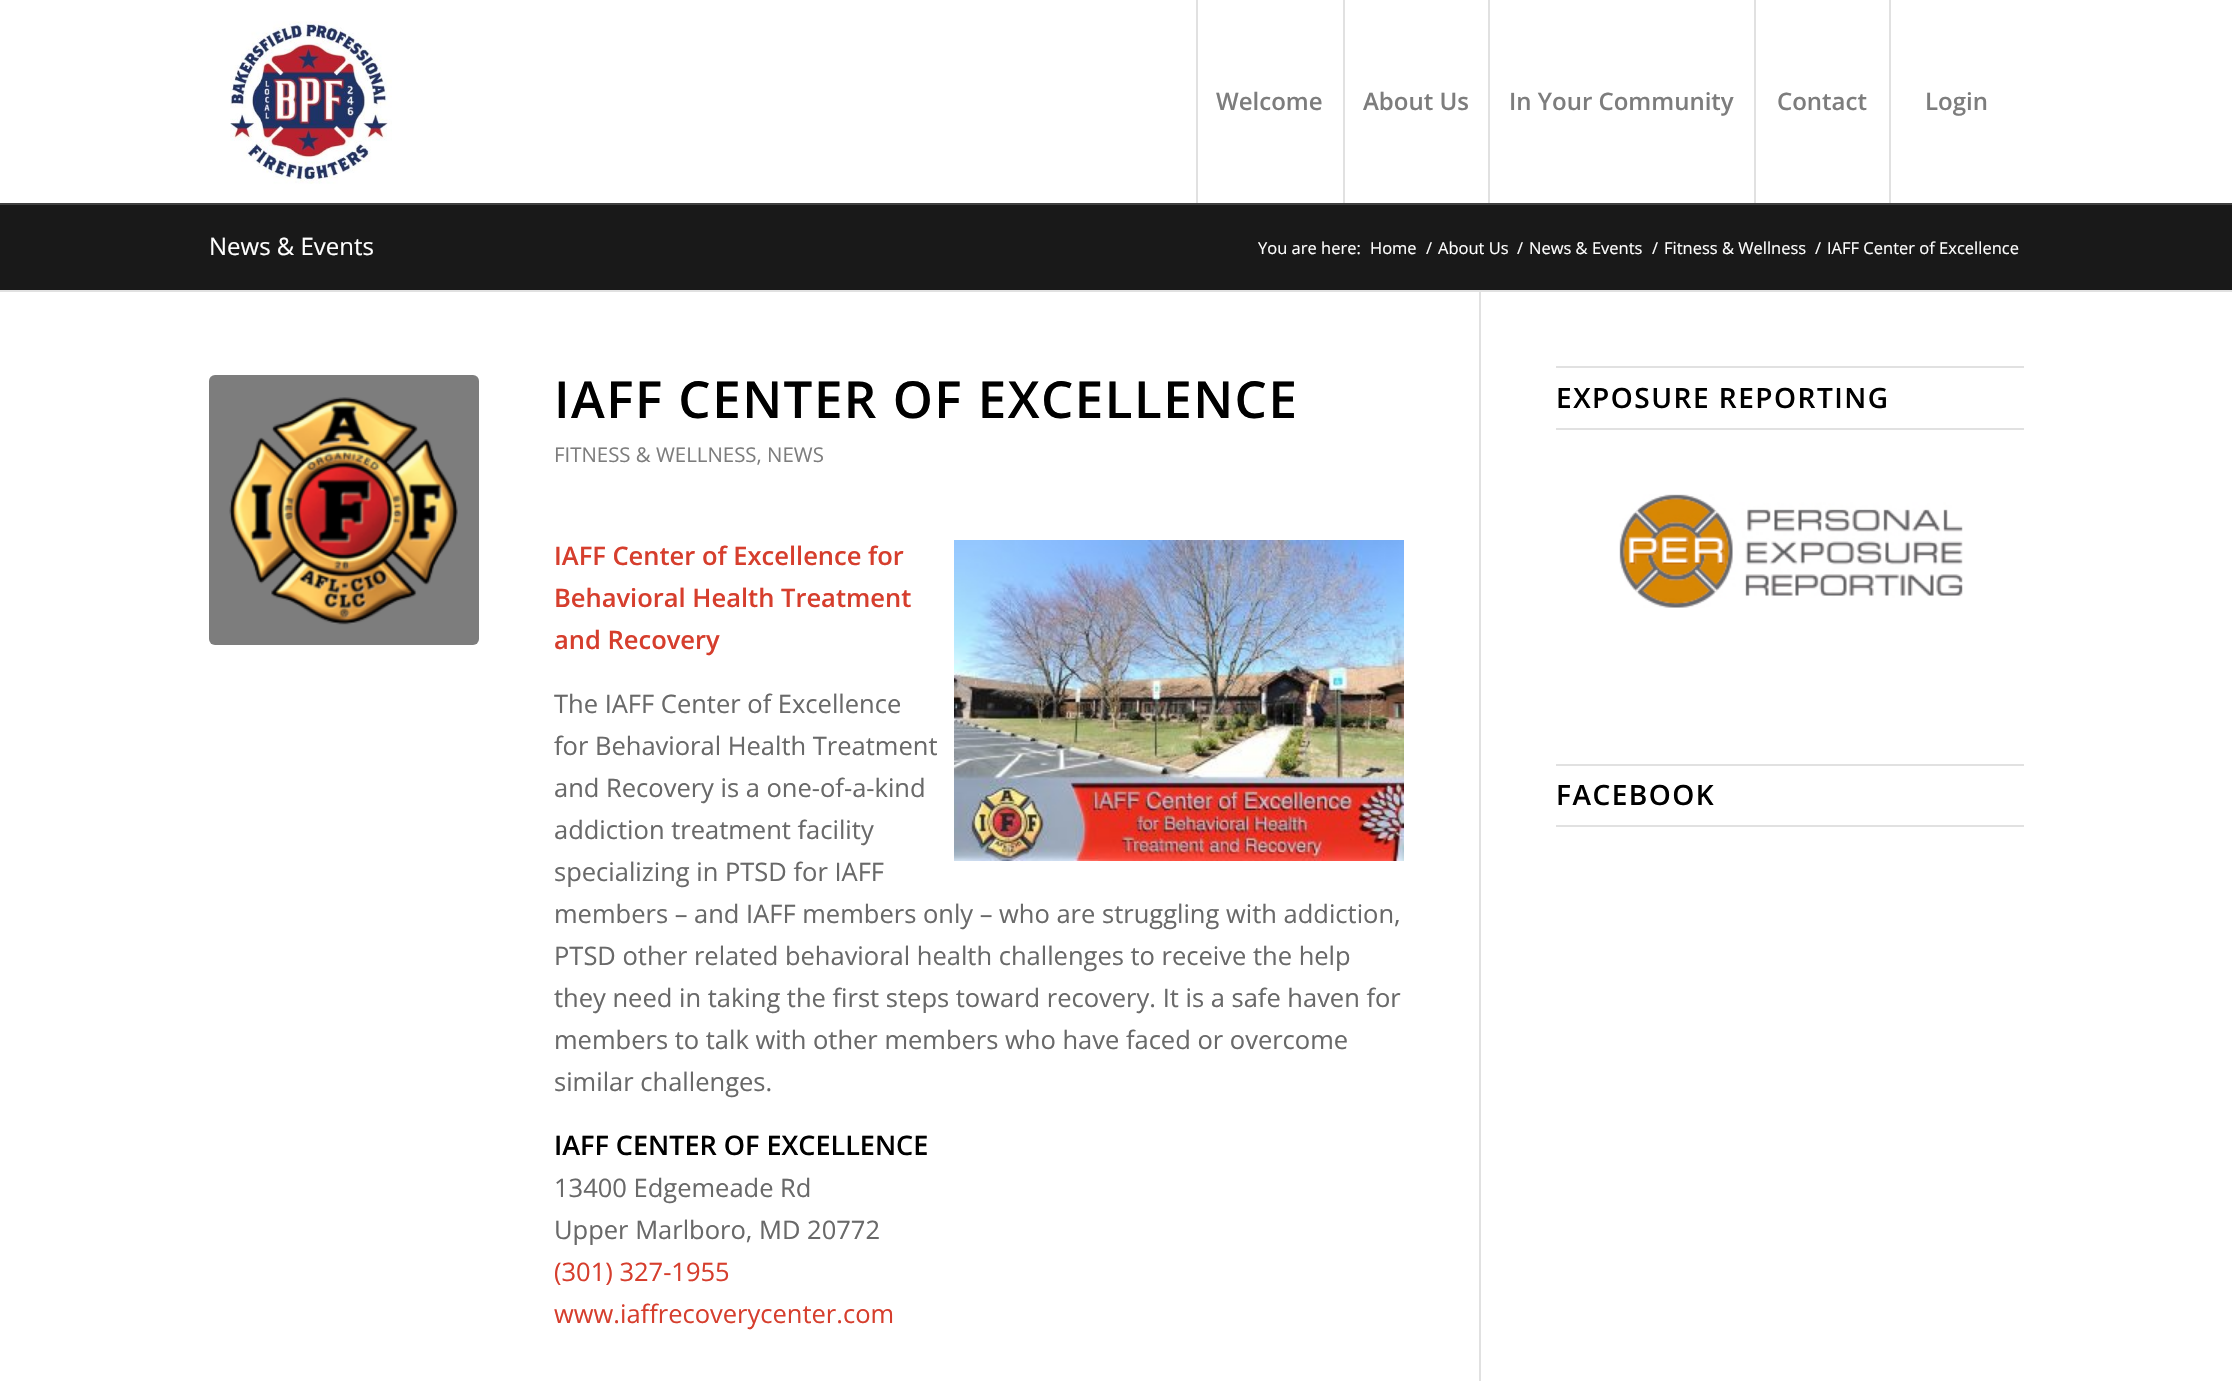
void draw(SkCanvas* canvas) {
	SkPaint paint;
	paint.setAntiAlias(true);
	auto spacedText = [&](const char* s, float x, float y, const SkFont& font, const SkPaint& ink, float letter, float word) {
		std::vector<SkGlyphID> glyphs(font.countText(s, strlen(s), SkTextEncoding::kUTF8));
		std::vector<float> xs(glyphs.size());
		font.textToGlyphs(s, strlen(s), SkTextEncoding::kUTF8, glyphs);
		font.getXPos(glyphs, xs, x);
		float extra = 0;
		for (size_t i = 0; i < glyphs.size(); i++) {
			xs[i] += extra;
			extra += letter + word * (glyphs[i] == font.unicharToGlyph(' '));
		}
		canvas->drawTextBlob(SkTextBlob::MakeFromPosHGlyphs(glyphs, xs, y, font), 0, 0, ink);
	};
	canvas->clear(0xffffffff);
	paint.setColor(0xff191919);
	canvas->drawRect(SkRect::MakeXYWH(0, 205, 2232, 85), paint);
	paint.setColor(0xff444444);
	canvas->drawRect(SkRect::MakeXYWH(0, 203, 2232, 2), paint);
	paint.setColor(0x1a000000);
	paint.setMaskFilter(SkMaskFilter::MakeBlur(kNormal_SkBlurStyle, 1.5));
	canvas->drawRect(SkRect::MakeXYWH(-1, -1, 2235, 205), paint);
	paint.setMaskFilter(nullptr);
	paint.setColor(0xffffffff);
	canvas->drawRect(SkRect::MakeXYWH(0, 0, 2232, 203), paint);
	canvas->drawImageRect(SkImages::DeferredFromEncodedData(SkData::MakeFromFileName("img1.png")), SkRect::MakeXYWH(230, 21, 162, 163), SkSamplingOptions());
	paint.setColor(0xffe1e1e1);
	canvas->drawRect(SkRect::MakeXYWH(1196, 0, 2, 203), paint);
	SkFont f1(fontMgr->matchFamilyStyle("Open Sans", SkFontStyle(600, SkFontStyle::kNormal_Width, SkFontStyle::kUpright_Slant)), 24);
	f1.setSubpixel(true);
	paint.setColor(0xff7d7d7d);
	canvas->drawString("Welcome", 1216, 110, f1, paint);
	paint.setColor(0xffe1e1e1);
	canvas->drawRect(SkRect::MakeXYWH(1343, 0, 2, 203), paint);
	paint.setColor(0xff7d7d7d);
	canvas->drawString("About Us", 1363, 110, f1, paint);
	paint.setColor(0xffe1e1e1);
	canvas->drawRect(SkRect::MakeXYWH(1488, 0, 2, 203), paint);
	paint.setColor(0xff7d7d7d);
	canvas->drawString("In Your Community", 1509, 110, f1, paint);
	paint.setColor(0xffe1e1e1);
	canvas->drawRect(SkRect::MakeXYWH(1754, 0, 2, 203), paint);
	paint.setColor(0xff7d7d7d);
	canvas->drawString("Contact", 1777, 110, f1, paint);
	paint.setColor(0xffe1e1e1);
	canvas->drawRect(SkRect::MakeXYWH(1889, 0, 2, 203), paint);
	paint.setColor(0xff7d7d7d);
	canvas->drawString("Login", 1925, 110, f1, paint);
	SkFont f2(fontMgr->matchFamilyStyle("Open Sans", SkFontStyle::Normal()), 24);
	f2.setSubpixel(true);
	paint.setColor(0xffffffff);
	canvas->drawString("News & Events", 209, 255, f2, paint);
	SkFont f3(fontMgr->matchFamilyStyle("Open Sans", SkFontStyle::Normal()), 16.5);
	f3.setSubpixel(true);
	canvas->drawString("You are here:", 1258, 254, f3, paint);
	canvas->drawString("Home", 1370, 254, f3, paint);
	canvas->drawString("/", 1426, 254, f3, paint);
	canvas->drawString("About Us", 1438, 254, f3, paint);
	canvas->drawString("/", 1517, 254, f3, paint);
	canvas->drawString("News & Events", 1529, 254, f3, paint);
	canvas->drawString("/", 1652, 254, f3, paint);
	canvas->drawString("Fitness & Wellness", 1664, 254, f3, paint);
	canvas->drawString("/", 1815, 254, f3, paint);
	canvas->drawString("IAFF Center of Excellence", 1827, 254, f3, paint);
	paint.setColor(0xffe1e1e1);
	canvas->drawRect(SkRect::MakeXYWH(0, 290, 2232, 2), paint);
	canvas->drawRect(SkRect::MakeXYWH(1479, 291, 2, 1090), paint);
	paint.setColor(0xff7d7d7d);
	canvas->drawRoundRect(SkRect::MakeXYWH(209, 375, 270, 270), 6, 6, paint);
	canvas->drawImageRect(SkImages::DeferredFromEncodedData(SkData::MakeFromFileName("img2.png")), SkRect::MakeXYWH(229, 397, 229, 228), SkSamplingOptions());
	SkFont f4(fontMgr->matchFamilyStyle("Open Sans", SkFontStyle(600, SkFontStyle::kNormal_Width, SkFontStyle::kUpright_Slant)), 51);
	f4.setSubpixel(true);
	paint.setColor(0xff000000);
	spacedText("IAFF CENTER OF EXCELLENCE", 554, 418, f4, paint, 1.5, 0);
	SkFont f5(fontMgr->matchFamilyStyle("Open Sans", SkFontStyle::Normal()), 20.4);
	f5.setSubpixel(true);
	paint.setColor(0xff7d7d7d);
	canvas->drawString("FITNESS & WELLNESS, NEWS", 554, 462, f5, paint);
	SkFont f6(fontMgr->matchFamilyStyle("Open Sans", SkFontStyle(600, SkFontStyle::kNormal_Width, SkFontStyle::kUpright_Slant)), 25.5);
	f6.setSubpixel(true);
	paint.setColor(0xffd63e2d);
	canvas->drawString("IAFF Center of Excellence for", 554, 565, f6, paint);
	canvas->drawImageRect(SkImages::DeferredFromEncodedData(SkData::MakeFromFileName("img3.png")), SkRect::MakeXYWH(954, 540, 450, 321), SkSamplingOptions());
	canvas->drawString("Behavioral Health Treatment", 554, 607, f6, paint);
	canvas->drawString("and Recovery", 554, 649, f6, paint);
	SkFont f7(fontMgr->matchFamilyStyle("Open Sans", SkFontStyle::Normal()), 25.5);
	f7.setSubpixel(true);
	paint.setColor(0xff696969);
	canvas->drawString("The IAFF Center of Excellence", 554, 713, f7, paint);
	canvas->drawString("for Behavioral Health Treatment", 554, 755, f7, paint);
	canvas->drawString("and Recovery is a one-of-a-kind", 554, 797, f7, paint);
	canvas->drawString("addiction treatment facility", 554, 839, f7, paint);
	canvas->drawString("specializing in PTSD for IAFF", 554, 881, f7, paint);
	canvas->drawString("members – and IAFF members only – who are struggling with addiction,", 554, 923, f7, paint);
	canvas->drawString("PTSD other related behavioral health challenges to receive the help", 554, 965, f7, paint);
	canvas->drawString("they need in taking the first steps toward recovery. It is a safe haven for", 554, 1007, f7, paint);
	canvas->drawString("members to talk with other members who have faced or overcome", 554, 1049, f7, paint);
	canvas->drawString("similar challenges.", 554, 1091, f7, paint);
	SkFont f8(fontMgr->matchFamilyStyle("Open Sans", SkFontStyle(600, SkFontStyle::kNormal_Width, SkFontStyle::kUpright_Slant)), 27);
	f8.setSubpixel(true);
	paint.setColor(0xff000000);
	canvas->drawString("IAFF CENTER OF EXCELLENCE", 554, 1155, f8, paint);
	paint.setColor(0xff696969);
	canvas->drawString("13400 Edgemeade Rd", 554, 1197, f7, paint);
	canvas->drawString("Upper Marlboro, MD 20772", 554, 1239, f7, paint);
	paint.setColor(0xffd63e2d);
	canvas->drawString("(301) 327-1955", 554, 1281, f7, paint);
	canvas->drawString("www.iaffrecoverycenter.com", 554, 1323, f7, paint);
	paint.setColor(0xffe1e1e1);
	canvas->drawRect(SkRect::MakeXYWH(1556, 366, 468, 2), paint);
	canvas->drawRect(SkRect::MakeXYWH(1556, 428, 468, 2), paint);
	SkFont f9(fontMgr->matchFamilyStyle("Open Sans", SkFontStyle(600, SkFontStyle::kNormal_Width, SkFontStyle::kUpright_Slant)), 28);
	f9.setSubpixel(true);
	paint.setColor(0xff000000);
	spacedText("EXPOSURE REPORTING", 1556, 408, f9, paint, 1.5, 0);
	canvas->drawImageRect(SkImages::DeferredFromEncodedData(SkData::MakeFromFileName("img4.png")), SkRect::MakeXYWH(1619, 494, 344, 114), SkSamplingOptions());
	paint.setColor(0xffe1e1e1);
	canvas->drawRect(SkRect::MakeXYWH(1556, 764, 468, 2), paint);
	canvas->drawRect(SkRect::MakeXYWH(1556, 825, 468, 2), paint);
	paint.setColor(0xff000000);
	spacedText("FACEBOOK", 1556, 805, f9, paint, 1.5, 0);
}
